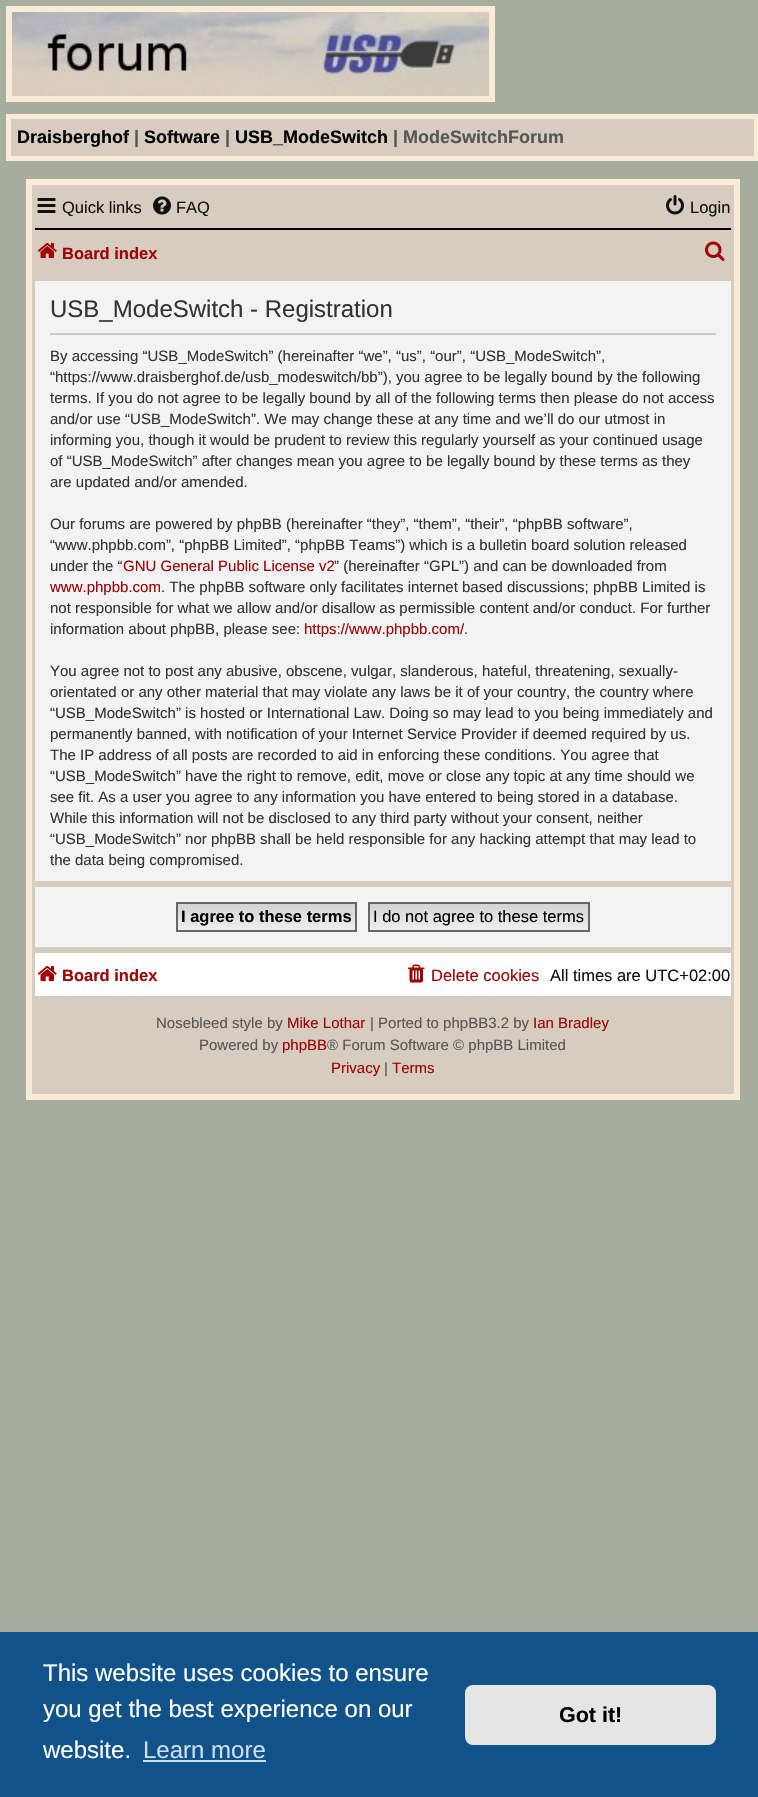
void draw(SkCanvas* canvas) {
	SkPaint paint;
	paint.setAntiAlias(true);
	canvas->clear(0xffa7ad9c);
	paint.setStroke(true);
	paint.setStrokeWidth(6);
	paint.setColor(0xfffaebd7);
	canvas->drawRect(SkRect::MakeXYWH(9, 9, 483, 90), paint);
	canvas->drawImageRect(SkImages::DeferredFromEncodedData(SkData::MakeFromFileName("img1.png")), SkRect::MakeXYWH(12, 12, 477, 84), SkSamplingOptions());
	paint.setStroke(false);
	paint.setColor(0xffd6ccc0);
	canvas->drawRect(SkRect::MakeXYWH(8.5, 116.5, 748, 42), paint);
	paint.setStroke(true);
	paint.setStrokeWidth(5);
	paint.setColor(0xfffaebd7);
	canvas->drawRect(SkRect::MakeXYWH(8.5, 116.5, 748, 42), paint);
	SkFont f1(fontMgr->matchFamilyStyle("Liberation Sans", SkFontStyle::Bold()), 18);
	f1.setSubpixel(true);
	paint.setStroke(false);
	paint.setColor(0xff000000);
	canvas->drawString("Draisberghof", 17, 143, f1, paint);
	paint.setColor(0xff555555);
	canvas->drawString("|", 134, 143, f1, paint);
	paint.setColor(0xff000000);
	canvas->drawString("Software", 144, 143, f1, paint);
	paint.setColor(0xff555555);
	canvas->drawString("|", 225, 143, f1, paint);
	paint.setColor(0xff000000);
	canvas->drawString("USB_ModeSwitch", 235, 143, f1, paint);
	paint.setColor(0xff555555);
	canvas->drawString("| ModeSwitchForum", 393, 143, f1, paint);
	paint.setColor(0xffd6ccc0);
	canvas->drawRect(SkRect::MakeXYWH(32, 185, 702, 909), paint);
	paint.setColor(0xfffaebd7);
	canvas->drawRect(SkRect::MakeXYWH(26, 179, 714, 6), paint);
	canvas->drawRect(SkRect::MakeXYWH(734, 179, 6, 921), paint);
	canvas->drawRect(SkRect::MakeXYWH(26, 1094, 714, 6), paint);
	canvas->drawRect(SkRect::MakeXYWH(26, 179, 6, 921), paint);
	canvas->drawImageRect(SkImages::DeferredFromEncodedData(SkData::MakeFromFileName("img2.png")), SkRect::MakeXYWH(37, 198, 19, 15), SkSamplingOptions());
	SkFont f2(fontMgr->matchFamilyStyle("Liberation Sans", SkFontStyle::Normal()), 16.5);
	f2.setSubpixel(true);
	paint.setColor(0xff111111);
	canvas->drawString("Quick links", 62, 213, f2, paint);
	canvas->drawImageRect(SkImages::DeferredFromEncodedData(SkData::MakeFromFileName("img3.png")), SkRect::MakeXYWH(153, 196, 18, 19), SkSamplingOptions());
	canvas->drawString("FAQ", 176, 213, f2, paint);
	canvas->drawImageRect(SkImages::DeferredFromEncodedData(SkData::MakeFromFileName("img4.png")), SkRect::MakeXYWH(666, 195, 18, 20), SkSamplingOptions());
	canvas->drawString("Login", 690, 213, f2, paint);
	paint.setColor(0xff000000);
	canvas->drawRect(SkRect::MakeXYWH(35, 228, 696, 2), paint);
	canvas->drawImageRect(SkImages::DeferredFromEncodedData(SkData::MakeFromFileName("img5.png")), SkRect::MakeXYWH(37, 243, 20, 15), SkSamplingOptions());
	SkFont f3(fontMgr->matchFamilyStyle("Liberation Sans", SkFontStyle::Bold()), 16.5);
	f3.setSubpixel(true);
	paint.setColor(0xff9f0002);
	canvas->drawString("Board index", 62, 259, f3, paint);
	canvas->drawImageRect(SkImages::DeferredFromEncodedData(SkData::MakeFromFileName("img6.png")), SkRect::MakeXYWH(705, 241, 20, 20), SkSamplingOptions());
	paint.setColor(0xfff3f3f3);
	canvas->drawRect(SkRect::MakeXYWH(35, 281, 696, 600), paint);
	paint.setColor(0xffcccccc);
	canvas->drawRect(SkRect::MakeXYWH(50, 333, 666, 2), paint);
	SkFont f4(fontMgr->matchFamilyStyle("Liberation Sans", SkFontStyle::Normal()), 24);
	f4.setSubpixel(true);
	paint.setColor(0xff333333);
	canvas->drawString("USB_ModeSwitch - Registration", 50, 317, f4, paint);
	SkFont f5(fontMgr->matchFamilyStyle("Liberation Sans", SkFontStyle::Normal()), 15);
	f5.setSubpixel(true);
	canvas->drawString("By accessing “USB_ModeSwitch” (hereinafter “we”, “us”, “our”, “USB_ModeSwitch”,", 50, 361, f5, paint);
	canvas->drawString("“https://www.draisberghof.de/usb_modeswitch/bb”), you agree to be legally bound by the following", 50, 382, f5, paint);
	canvas->drawString("terms. If you do not agree to be legally bound by all of the following terms then please do not access", 50, 403, f5, paint);
	canvas->drawString("and/or use “USB_ModeSwitch”. We may change these at any time and we’ll do our utmost in", 50, 424, f5, paint);
	canvas->drawString("informing you, though it would be prudent to review this regularly yourself as your continued usage", 50, 445, f5, paint);
	canvas->drawString("of “USB_ModeSwitch” after changes mean you agree to be legally bound by these terms as they", 50, 466, f5, paint);
	canvas->drawString("are updated and/or amended.", 50, 487, f5, paint);
	canvas->drawString("Our forums are powered by phpBB (hereinafter “they”, “them”, “their”, “phpBB software”,", 50, 529, f5, paint);
	canvas->drawString("“www.phpbb.com”, “phpBB Limited”, “phpBB Teams”) which is a bulletin board solution released", 50, 550, f5, paint);
	canvas->drawString("under the “", 50, 571, f5, paint);
	paint.setColor(0xff9f0002);
	canvas->drawString("GNU General Public License v2", 123, 571, f5, paint);
	paint.setColor(0xff333333);
	canvas->drawString("” (hereinafter “GPL”) and can be downloaded from", 334, 571, f5, paint);
	paint.setColor(0xff9f0002);
	canvas->drawString("www.phpbb.com", 50, 592, f5, paint);
	paint.setColor(0xff333333);
	canvas->drawString(". The phpBB software only facilitates internet based discussions; phpBB Limited is", 161, 592, f5, paint);
	canvas->drawString("not responsible for what we allow and/or disallow as permissible content and/or conduct. For further", 50, 613, f5, paint);
	canvas->drawString("information about phpBB, please see:", 50, 634, f5, paint);
	paint.setColor(0xff9f0002);
	canvas->drawString("https://www.phpbb.com/", 304, 634, f5, paint);
	paint.setColor(0xff333333);
	canvas->drawString(".", 464, 634, f5, paint);
	canvas->drawString("You agree not to post any abusive, obscene, vulgar, slanderous, hateful, threatening, sexually-", 50, 676, f5, paint);
	canvas->drawString("orientated or any other material that may violate any laws be it of your country, the country where", 50, 697, f5, paint);
	canvas->drawString("“USB_ModeSwitch” is hosted or International Law. Doing so may lead to you being immediately and", 50, 718, f5, paint);
	canvas->drawString("permanently banned, with notification of your Internet Service Provider if deemed required by us.", 50, 739, f5, paint);
	canvas->drawString("The IP address of all posts are recorded to aid in enforcing these conditions. You agree that", 50, 760, f5, paint);
	canvas->drawString("“USB_ModeSwitch” have the right to remove, edit, move or close any topic at any time should we", 50, 781, f5, paint);
	canvas->drawString("see fit. As a user you agree to any information you have entered to being stored in a database.", 50, 802, f5, paint);
	canvas->drawString("While this information will not be disclosed to any third party without your consent, neither", 50, 823, f5, paint);
	canvas->drawString("“USB_ModeSwitch” nor phpBB shall be held responsible for any hacking attempt that may lead to", 50, 844, f5, paint);
	canvas->drawString("the data being compromised.", 50, 865, f5, paint);
	paint.setColor(0xfff3f3f3);
	canvas->drawRect(SkRect::MakeXYWH(35, 887, 696, 60), paint);
	{
		const SkColor colors[] = {0xffd2d2d2, 0xffefefef};
		const float stops[] = {0, 1};
		const SkPoint ends[] = {{266, 903}, {266, 930}};
		paint.setShader(SkGradientShader::MakeLinear(ends, colors, stops, 2, SkTileMode::kClamp));
		paint.setAlpha(255);
	}
	canvas->drawRect(SkRect::MakeXYWH(178, 904, 177, 26), paint);
	paint.setStroke(true);
	paint.setStrokeWidth(2);
	paint.setShader(nullptr);
	paint.setColor(0xff666666);
	canvas->drawRect(SkRect::MakeXYWH(177, 903, 179, 28), paint);
	paint.setStroke(false);
	paint.setColor(0xff000000);
	canvas->drawString("I agree to these terms", 181, 922, f3, paint);
	{
		const SkColor colors[] = {0xffd2d2d2, 0xffefefef};
		const float stops[] = {0, 1};
		const SkPoint ends[] = {{479, 903}, {479, 930}};
		paint.setShader(SkGradientShader::MakeLinear(ends, colors, stops, 2, SkTileMode::kClamp));
		paint.setAlpha(255);
	}
	canvas->drawRect(SkRect::MakeXYWH(370, 904, 218, 26), paint);
	paint.setStroke(true);
	paint.setShader(nullptr);
	paint.setColor(0xff666666);
	canvas->drawRect(SkRect::MakeXYWH(369, 903, 220, 28), paint);
	paint.setStroke(false);
	paint.setColor(0xff000000);
	canvas->drawString("I do not agree to these terms", 373, 922, f2, paint);
	paint.setColor(0xffffffff);
	canvas->drawRect(SkRect::MakeXYWH(35, 953, 696, 43), paint);
	canvas->drawImageRect(SkImages::DeferredFromEncodedData(SkData::MakeFromFileName("img7.png")), SkRect::MakeXYWH(37, 966, 20, 15), SkSamplingOptions());
	paint.setColor(0xff9f0002);
	canvas->drawString("Board index", 62, 981, f3, paint);
	canvas->drawImageRect(SkImages::DeferredFromEncodedData(SkData::MakeFromFileName("img8.png")), SkRect::MakeXYWH(408, 964, 17, 19), SkSamplingOptions());
	canvas->drawString("Delete cookies", 431, 981, f2, paint);
	paint.setColor(0xff111111);
	canvas->drawString("All times are UTC+02:00", 550, 981, f2, paint);
	paint.setColor(0xff555555);
	canvas->drawString("Nosebleed style by", 156, 1028, f5, paint);
	paint.setColor(0xff9f0002);
	canvas->drawString("Mike Lothar", 287, 1028, f5, paint);
	paint.setColor(0xff555555);
	canvas->drawString("| Ported to phpBB3.2 by", 370, 1028, f5, paint);
	paint.setColor(0xff9f0002);
	canvas->drawString("Ian Bradley", 533, 1028, f5, paint);
	paint.setColor(0xff555555);
	canvas->drawString("Powered by", 199, 1050, f5, paint);
	paint.setColor(0xff9f0002);
	canvas->drawString("phpBB", 282, 1050, f5, paint);
	paint.setColor(0xff555555);
	canvas->drawString("® Forum Software © phpBB Limited", 327, 1050, f5, paint);
	paint.setColor(0xff9f0002);
	canvas->drawString("Privacy", 331, 1073, f5, paint);
	paint.setColor(0xff555555);
	canvas->drawString("|", 384, 1073, f5, paint);
	paint.setColor(0xff9f0002);
	canvas->drawString("Terms", 392, 1073, f5, paint);
	paint.setColor(0xff0f538a);
	canvas->drawRect(SkRect::MakeXYWH(0, 1632, 758, 165), paint);
	paint.setColor(0xffffffff);
	canvas->drawString("This website uses cookies to ensure", 43, 1681, f4, paint);
	canvas->drawString("you get the best experience on our", 43, 1717, f4, paint);
	canvas->drawString("website.", 43, 1758, f4, paint);
	paint.setColor(0xffcfdde8);
	canvas->drawString("Learn more", 143, 1758, f4, paint);
	canvas->drawRect(SkRect::MakeXYWH(143, 1760, 123, 2), paint);
	paint.setColor(0xffe5e5e5);
	canvas->drawRoundRect(SkRect::MakeXYWH(465, 1685, 251, 60), 8, 8, paint);
	SkFont f6(fontMgr->matchFamilyStyle("Liberation Sans", SkFontStyle::Bold()), 21.5);
	f6.setSubpixel(true);
	paint.setColor(0xff000000);
	canvas->drawString("Got it!", 559, 1722, f6, paint);
}
